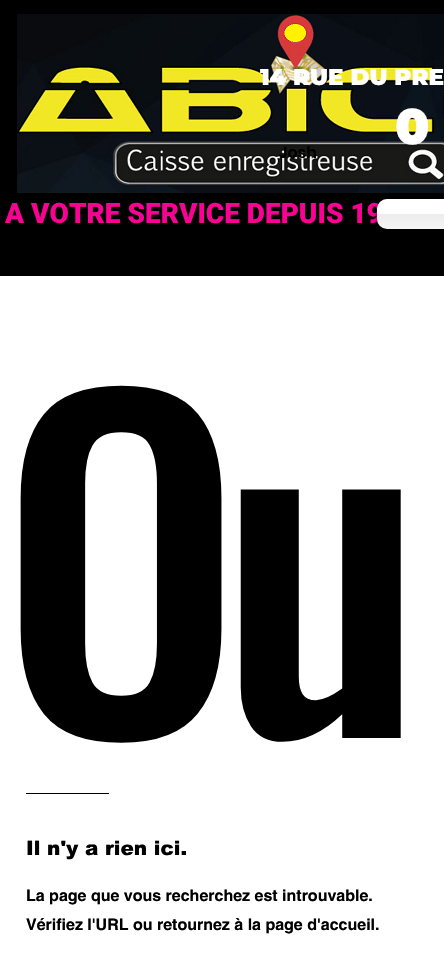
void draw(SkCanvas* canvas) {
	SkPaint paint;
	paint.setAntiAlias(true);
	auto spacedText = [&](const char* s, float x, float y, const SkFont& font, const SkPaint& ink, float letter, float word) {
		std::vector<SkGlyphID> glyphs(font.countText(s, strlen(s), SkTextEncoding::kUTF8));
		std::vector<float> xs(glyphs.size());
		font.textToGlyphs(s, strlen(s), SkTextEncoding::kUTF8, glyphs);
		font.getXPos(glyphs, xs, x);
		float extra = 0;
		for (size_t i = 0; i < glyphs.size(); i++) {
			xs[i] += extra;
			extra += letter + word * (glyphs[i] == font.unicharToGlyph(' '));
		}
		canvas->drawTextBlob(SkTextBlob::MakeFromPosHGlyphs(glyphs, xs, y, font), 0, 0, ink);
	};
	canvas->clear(0xffffffff);
	paint.setColor(0xff000000);
	canvas->drawRect(SkRect::MakeXYWH(0, 0, 444, 276), paint);
	canvas->drawImageRect(SkImages::DeferredFromEncodedData(SkData::MakeFromFileName("img1.png")), SkRect::MakeXYWH(17, 14, 427, 179), SkSamplingOptions());
	SkFont f1(fontMgr->matchFamilyStyle("Montserrat", SkFontStyle(100, SkFontStyle::kNormal_Width, SkFontStyle::kUpright_Slant)), 23);
	f1.setSubpixel(true);
	paint.setColor(0xffffffff);
	canvas->drawString("14 RUE DU PRE", 260, 85, f1, paint);
	SkFont f2(fontMgr->matchFamilyStyle("Montserrat", SkFontStyle(100, SkFontStyle::kNormal_Width, SkFontStyle::kUpright_Slant)), 50);
	f2.setSubpixel(true);
	canvas->drawString("0", 395, 144, f2, paint);
	SkFont f3(fontMgr->matchFamilyStyle("Poppins", SkFontStyle(600, SkFontStyle::kNormal_Width, SkFontStyle::kUpright_Slant)), 16);
	f3.setSubpixel(true);
	paint.setColor(0xff000000);
	canvas->drawString("Josh", 279, 158, f3, paint);
	SkFont f4(fontMgr->matchFamilyStyle("Roboto", SkFontStyle(900, SkFontStyle::kNormal_Width, SkFontStyle::kUpright_Slant)), 28);
	f4.setSubpixel(true);
	paint.setColor(0xfff90293);
	canvas->drawString("A VOTRE SERVICE DEPUIS 19", 5, 223, f4, paint);
	paint.setColor(0x99000000);
	paint.setMaskFilter(SkMaskFilter::MakeBlur(kNormal_SkBlurStyle, 2));
	canvas->drawRoundRect(SkRect::MakeXYWH(377, 200, 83, 30), 10, 10, paint);
	paint.setMaskFilter(nullptr);
	paint.setColor(0xffffffff);
	canvas->drawRoundRect(SkRect::MakeXYWH(377, 199, 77, 30), 10, 10, paint);
	canvas->drawImageRect(SkImages::DeferredFromEncodedData(SkData::MakeFromFileName("img2.png")), SkRect::MakeXYWH(377, 199, 53, 30), SkSamplingOptions());
	canvas->drawImageRect(SkImages::DeferredFromEncodedData(SkData::MakeFromFileName("img3.png")), SkRect::MakeXYWH(430, 214, 14, 15), SkSamplingOptions());
	SkFont f5(fontMgr->matchFamilyStyle("Oswald", SkFontStyle(500, SkFontStyle::kNormal_Width, SkFontStyle::kUpright_Slant)), 430);
	f5.setSubpixel(true);
	paint.setColor(0xff000000);
	spacedText("Ou", 0, 738, f5, paint, -22, 0);
	canvas->drawRect(SkRect::MakeXYWH(26, 793, 83, 1), paint);
	SkFont f6(fontMgr->matchFamilyStyle("arial", SkFontStyle(900, SkFontStyle::kNormal_Width, SkFontStyle::kUpright_Slant)), 20);
	f6.setSubpixel(true);
	canvas->drawString("Il n'y a rien ici.", 26, 855, f6, paint);
	SkFont f7(fontMgr->matchFamilyStyle("helvetica", SkFontStyle::Bold()), 16);
	f7.setSubpixel(true);
	canvas->drawString("La page que vous recherchez est introuvable.", 26, 901, f7, paint);
	canvas->drawString("Vérifiez l'URL ou retournez à la page d'accueil.", 26, 930, f7, paint);
}
